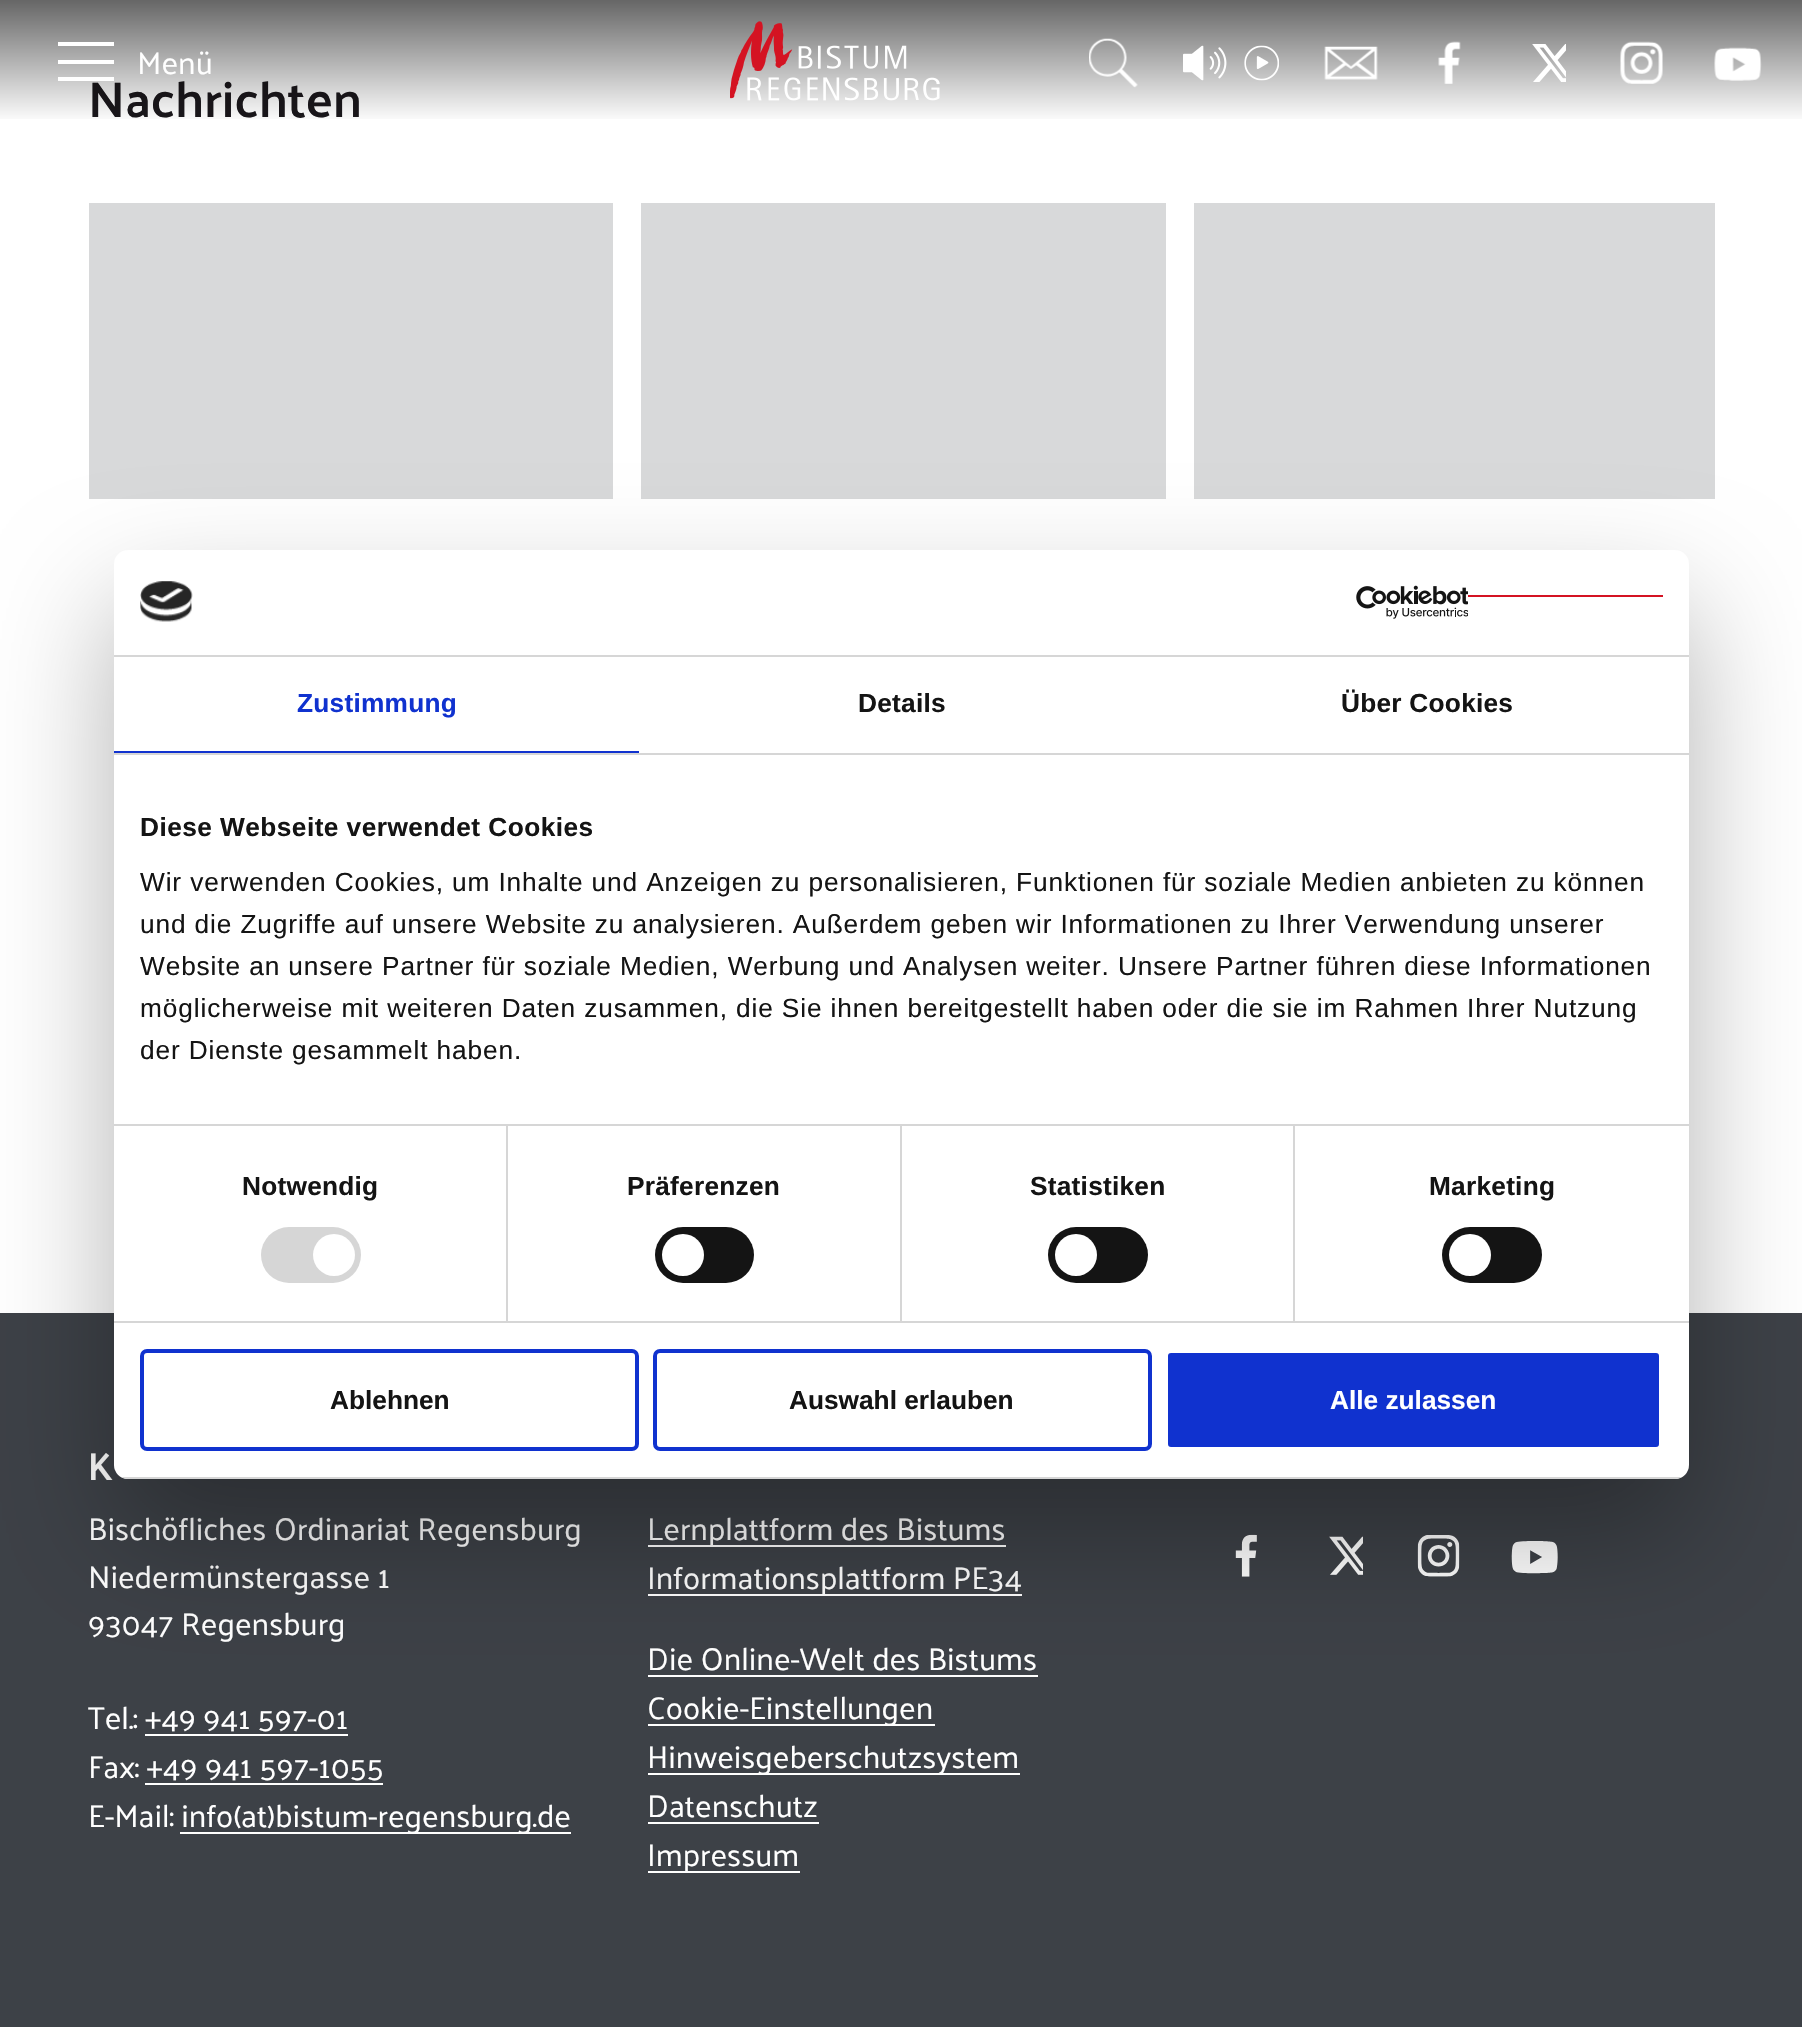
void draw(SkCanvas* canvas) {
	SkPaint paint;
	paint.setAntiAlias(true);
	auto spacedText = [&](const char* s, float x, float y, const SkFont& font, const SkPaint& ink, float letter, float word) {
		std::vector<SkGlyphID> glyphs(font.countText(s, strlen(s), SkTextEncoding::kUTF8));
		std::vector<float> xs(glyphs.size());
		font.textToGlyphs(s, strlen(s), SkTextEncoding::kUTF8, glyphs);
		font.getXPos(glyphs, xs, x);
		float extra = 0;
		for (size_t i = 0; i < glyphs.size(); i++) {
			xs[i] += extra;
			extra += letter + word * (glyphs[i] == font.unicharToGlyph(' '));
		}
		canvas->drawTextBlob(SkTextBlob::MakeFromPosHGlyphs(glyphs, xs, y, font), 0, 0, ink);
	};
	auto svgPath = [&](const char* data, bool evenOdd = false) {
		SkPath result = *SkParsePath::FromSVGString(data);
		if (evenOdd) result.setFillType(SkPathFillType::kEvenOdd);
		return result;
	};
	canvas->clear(0xffffffff);
	SkFont f1(fontMgr->matchFamilyStyle("Palanquin", SkFontStyle(600, SkFontStyle::kNormal_Width, SkFontStyle::kUpright_Slant)), 50.5);
	f1.setSubpixel(true);
	paint.setColor(0xff1a171b);
	canvas->drawString("Nachrichten", 88, 117, f1, paint);
	{
		const SkColor colors[] = {0x99000000, 0x00000000};
		const float stops[] = {0, 1};
		const SkPoint ends[] = {{901, 0}, {901, 123}};
		paint.setShader(SkGradientShader::MakeLinear(ends, colors, stops, 2, SkTileMode::kClamp));
		paint.setAlpha(255);
	}
	canvas->drawRect(SkRect::MakeXYWH(0, 0, 1802, 119), paint);
	paint.setShader(nullptr);
	paint.setColor(0xffffffff);
	canvas->drawRect(SkRect::MakeXYWH(58, 60, 56, 4), paint);
	canvas->drawRect(SkRect::MakeXYWH(58, 42, 56, 4), paint);
	canvas->drawRect(SkRect::MakeXYWH(58, 77, 56, 4), paint);
	SkFont f2(fontMgr->matchFamilyStyle("Palanquin", SkFontStyle::Normal()), 31.5);
	f2.setSubpixel(true);
	canvas->drawString("Menü", 137, 74, f2, paint);
	canvas->drawImageRect(SkImages::DeferredFromEncodedData(SkData::MakeFromFileName("img1.png")), SkRect::MakeXYWH(730, 21, 210, 80), SkSamplingOptions());
	canvas->drawImageRect(SkImages::DeferredFromEncodedData(SkData::MakeFromFileName("img2.png")), SkRect::MakeXYWH(1089, 38, 49, 50), SkSamplingOptions());
	canvas->drawImageRect(SkImages::DeferredFromEncodedData(SkData::MakeFromFileName("img3.png")), SkRect::MakeXYWH(1183, 45, 96, 36), SkSamplingOptions());
	canvas->drawImageRect(SkImages::DeferredFromEncodedData(SkData::MakeFromFileName("img4.png")), SkRect::MakeXYWH(1324, 46, 54, 34), SkSamplingOptions());
	canvas->drawImageRect(SkImages::DeferredFromEncodedData(SkData::MakeFromFileName("img5.png")), SkRect::MakeXYWH(1438, 41, 23, 43), SkSamplingOptions());
	canvas->drawImageRect(SkImages::DeferredFromEncodedData(SkData::MakeFromFileName("img6.png")), SkRect::MakeXYWH(1532, 44, 34, 38), SkSamplingOptions());
	canvas->drawImageRect(SkImages::DeferredFromEncodedData(SkData::MakeFromFileName("img7.png")), SkRect::MakeXYWH(1620, 41, 43, 43), SkSamplingOptions());
	canvas->drawImageRect(SkImages::DeferredFromEncodedData(SkData::MakeFromFileName("img8.png")), SkRect::MakeXYWH(1714, 47, 48, 34), SkSamplingOptions());
	paint.setColor(0xffd8d9da);
	canvas->drawRect(SkRect::MakeXYWH(89, 203, 524, 296), paint);
	canvas->drawRect(SkRect::MakeXYWH(641, 203, 525, 296), paint);
	canvas->drawRect(SkRect::MakeXYWH(1194, 203, 521, 296), paint);
	paint.setColor(0xff3d4147);
	canvas->drawRect(SkRect::MakeXYWH(0, 1313, 1802, 714), paint);
	SkFont f3(fontMgr->matchFamilyStyle("Palanquin", SkFontStyle(600, SkFontStyle::kNormal_Width, SkFontStyle::kUpright_Slant)), 39);
	f3.setSubpixel(true);
	paint.setColor(0xffffffff);
	canvas->drawString("K", 88, 1480, f3, paint);
	canvas->drawString("Bischöfliches Ordinariat Regensburg", 88, 1540, f2, paint);
	canvas->drawString("Niedermünstergasse 1", 88, 1588, f2, paint);
	canvas->drawString("93047 Regensburg", 88, 1635, f2, paint);
	canvas->drawString("Tel.: +49 941 597-01", 88, 1729, f2, paint);
	canvas->drawRect(SkRect::MakeXYWH(145, 1734, 203, 2), paint);
	canvas->drawString("Fax: +49 941 597-1055", 88, 1778, f2, paint);
	canvas->drawRect(SkRect::MakeXYWH(145, 1783, 238, 2), paint);
	canvas->drawString("E-Mail: info(at)bistum-regensburg.de", 88, 1827, f2, paint);
	canvas->drawRect(SkRect::MakeXYWH(180, 1832, 391, 2), paint);
	canvas->drawString("Lernplattform des Bistums", 647, 1540, f2, paint);
	canvas->drawRect(SkRect::MakeXYWH(648, 1545, 358, 2), paint);
	canvas->drawString("Informationsplattform PE34", 647, 1589, f2, paint);
	canvas->drawRect(SkRect::MakeXYWH(648, 1594, 374, 2), paint);
	canvas->drawString("Die Online-Welt des Bistums", 647, 1670, f2, paint);
	canvas->drawRect(SkRect::MakeXYWH(648, 1675, 390, 2), paint);
	canvas->drawString("Cookie-Einstellungen", 647, 1719, f2, paint);
	canvas->drawRect(SkRect::MakeXYWH(648, 1724, 287, 2), paint);
	canvas->drawString("Hinweisgeberschutzsystem", 647, 1768, f2, paint);
	canvas->drawRect(SkRect::MakeXYWH(648, 1773, 372, 2), paint);
	canvas->drawString("Datenschutz", 647, 1817, f2, paint);
	canvas->drawRect(SkRect::MakeXYWH(648, 1822, 171, 2), paint);
	canvas->drawString("Impressum", 647, 1866, f2, paint);
	canvas->drawRect(SkRect::MakeXYWH(648, 1871, 152, 2), paint);
	canvas->drawImageRect(SkImages::DeferredFromEncodedData(SkData::MakeFromFileName("img9.png")), SkRect::MakeXYWH(1235, 1534, 22, 43), SkSamplingOptions());
	canvas->drawImageRect(SkImages::DeferredFromEncodedData(SkData::MakeFromFileName("img10.png")), SkRect::MakeXYWH(1329, 1536, 34, 39), SkSamplingOptions());
	canvas->drawImageRect(SkImages::DeferredFromEncodedData(SkData::MakeFromFileName("img11.png")), SkRect::MakeXYWH(1417, 1535, 43, 42), SkSamplingOptions());
	canvas->drawImageRect(SkImages::DeferredFromEncodedData(SkData::MakeFromFileName("img12.png")), SkRect::MakeXYWH(1511, 1541, 47, 33), SkSamplingOptions());
	paint.setColor(0x4d000000);
	paint.setMaskFilter(SkMaskFilter::MakeBlur(kNormal_SkBlurStyle, 59.5));
	canvas->drawRoundRect(SkRect::MakeXYWH(114, 606, 1575, 929), 14, 14, paint);
	paint.setMaskFilter(nullptr);
	paint.setColor(0xffffffff);
	canvas->drawRoundRect(SkRect::MakeXYWH(114, 550, 1575, 929), 14, 14, paint);
	paint.setColor(0xffd6d6d6);
	canvas->drawRect(SkRect::MakeXYWH(114, 655, 1575, 2), paint);
	canvas->drawImageRect(SkImages::DeferredFromEncodedData(SkData::MakeFromFileName("img13.png")), SkRect::MakeXYWH(140, 581, 53, 41), SkSamplingOptions());
	canvas->drawImageRect(SkImages::DeferredFromEncodedData(SkData::MakeFromFileName("img14.png")), SkRect::MakeXYWH(1356, 585, 112, 34), SkSamplingOptions());
	paint.setColor(0xffd41323);
	canvas->drawRect(SkRect::MakeXYWH(1468, 595, 195, 2), paint);
	paint.setColor(0xffd6d6d6);
	canvas->drawRect(SkRect::MakeXYWH(114, 753, 1575, 2), paint);
	paint.setColor(0xff1032cf);
	canvas->drawRect(SkRect::MakeXYWH(114, 751, 525, 2), paint);
	SkFont f4(fontMgr->matchFamilyStyle("Liberation Sans", SkFontStyle::Bold()), 26.25);
	f4.setSubpixel(true);
	spacedText("Zustimmung", 297, 712, f4, paint, 0.25, 0);
	paint.setColor(0xff141414);
	spacedText("Details", 858, 712, f4, paint, 0.25, 0);
	spacedText("Über Cookies", 1341, 712, f4, paint, 0.25, 0);
	paint.setColor(0xffd6d6d6);
	canvas->drawRect(SkRect::MakeXYWH(506, 1125, 2, 196), paint);
	canvas->drawRect(SkRect::MakeXYWH(900, 1125, 2, 196), paint);
	canvas->drawRect(SkRect::MakeXYWH(1293, 1125, 2, 196), paint);
	canvas->drawRect(SkRect::MakeXYWH(114, 1124, 1575, 2), paint);
	paint.setColor(0xff141414);
	spacedText("Diese Webseite verwendet Cookies", 140, 836, f4, paint, 0.45, 0);
	SkFont f5(fontMgr->matchFamilyStyle("Liberation Sans", SkFontStyle::Normal()), 26.25);
	f5.setSubpixel(true);
	spacedText("Wir verwenden Cookies, um Inhalte und Anzeigen zu personalisieren, Funktionen für soziale Medien anbieten zu können", 140, 891, f5, paint, 0.88, 0);
	spacedText("und die Zugriffe auf unsere Website zu analysieren. Außerdem geben wir Informationen zu Ihrer Verwendung unserer", 140, 933, f5, paint, 0.88, 0);
	spacedText("Website an unsere Partner für soziale Medien, Werbung und Analysen weiter. Unsere Partner führen diese Informationen", 140, 975, f5, paint, 0.88, 0);
	spacedText("möglicherweise mit weiteren Daten zusammen, die Sie ihnen bereitgestellt haben oder die sie im Rahmen Ihrer Nutzung", 140, 1017, f5, paint, 0.88, 0);
	spacedText("der Dienste gesammelt haben.", 140, 1059, f5, paint, 0.88, 0);
	paint.setColor(0xffd6d6d6);
	canvas->drawRect(SkRect::MakeXYWH(114, 1321, 1575, 2), paint);
	paint.setColor(0xff141414);
	spacedText("Notwendig", 242, 1195, f4, paint, 0.25, 0);
	paint.setColor(0xffd6d6d6);
	canvas->drawRoundRect(SkRect::MakeXYWH(261, 1227, 100, 56), 28, 28, paint);
	paint.setColor(0xffffffff);
	canvas->drawCircle(334, 1255, 21, paint);
	paint.setColor(0xff141414);
	spacedText("Präferenzen", 627, 1195, f4, paint, 0.25, 0);
	canvas->drawRoundRect(SkRect::MakeXYWH(655, 1227, 99, 56), 28, 28, paint);
	paint.setColor(0xffffffff);
	canvas->drawCircle(683, 1255, 21, paint);
	paint.setColor(0xff141414);
	spacedText("Statistiken", 1030, 1195, f4, paint, 0.25, 0);
	canvas->drawRoundRect(SkRect::MakeXYWH(1048, 1227, 100, 56), 28, 28, paint);
	paint.setColor(0xffffffff);
	canvas->drawCircle(1076, 1255, 21, paint);
	paint.setColor(0xff141414);
	spacedText("Marketing", 1429, 1195, f4, paint, 0.25, 0);
	canvas->drawRoundRect(SkRect::MakeXYWH(1442, 1227, 100, 56), 28, 28, paint);
	paint.setColor(0xffffffff);
	canvas->drawCircle(1470, 1255, 21, paint);
	canvas->save();
	canvas->clipPath(svgPath("M128 550H1675C1682.5 550 1689 556.5 1689 564V1465C1689 1472.5 1682.5 1479 1675 1479H128C120.5 1479 114 1472.5 114 1465V564C114 556.5 120.5 550 128 550Z"), true);
	paint.setColor(0xffd6d6d6);
	canvas->drawRect(SkRect::MakeXYWH(114, 1477, 1575, 2), paint);
	canvas->restore();
	paint.setStroke(true);
	paint.setStrokeWidth(4);
	paint.setColor(0xff1032cf);
	canvas->drawRoundRect(SkRect::MakeXYWH(142, 1351, 495, 98), 5, 5, paint);
	paint.setStroke(false);
	paint.setColor(0xff141414);
	canvas->drawString("Ablehnen", 330, 1409, f4, paint);
	paint.setStroke(true);
	paint.setColor(0xff1032cf);
	canvas->drawRoundRect(SkRect::MakeXYWH(655, 1351, 495, 98), 5, 5, paint);
	paint.setStroke(false);
	paint.setColor(0xff141414);
	canvas->drawString("Auswahl erlauben", 789, 1409, f4, paint);
	paint.setColor(0xff1032cf);
	canvas->drawRoundRect(SkRect::MakeXYWH(1166, 1351, 495, 98), 5, 5, paint);
	paint.setStroke(true);
	paint.setColor(0xffffffff);
	canvas->drawRoundRect(SkRect::MakeXYWH(1166, 1351, 495, 98), 5, 5, paint);
	paint.setStroke(false);
	canvas->drawString("Alle zulassen", 1330, 1409, f4, paint);
}
